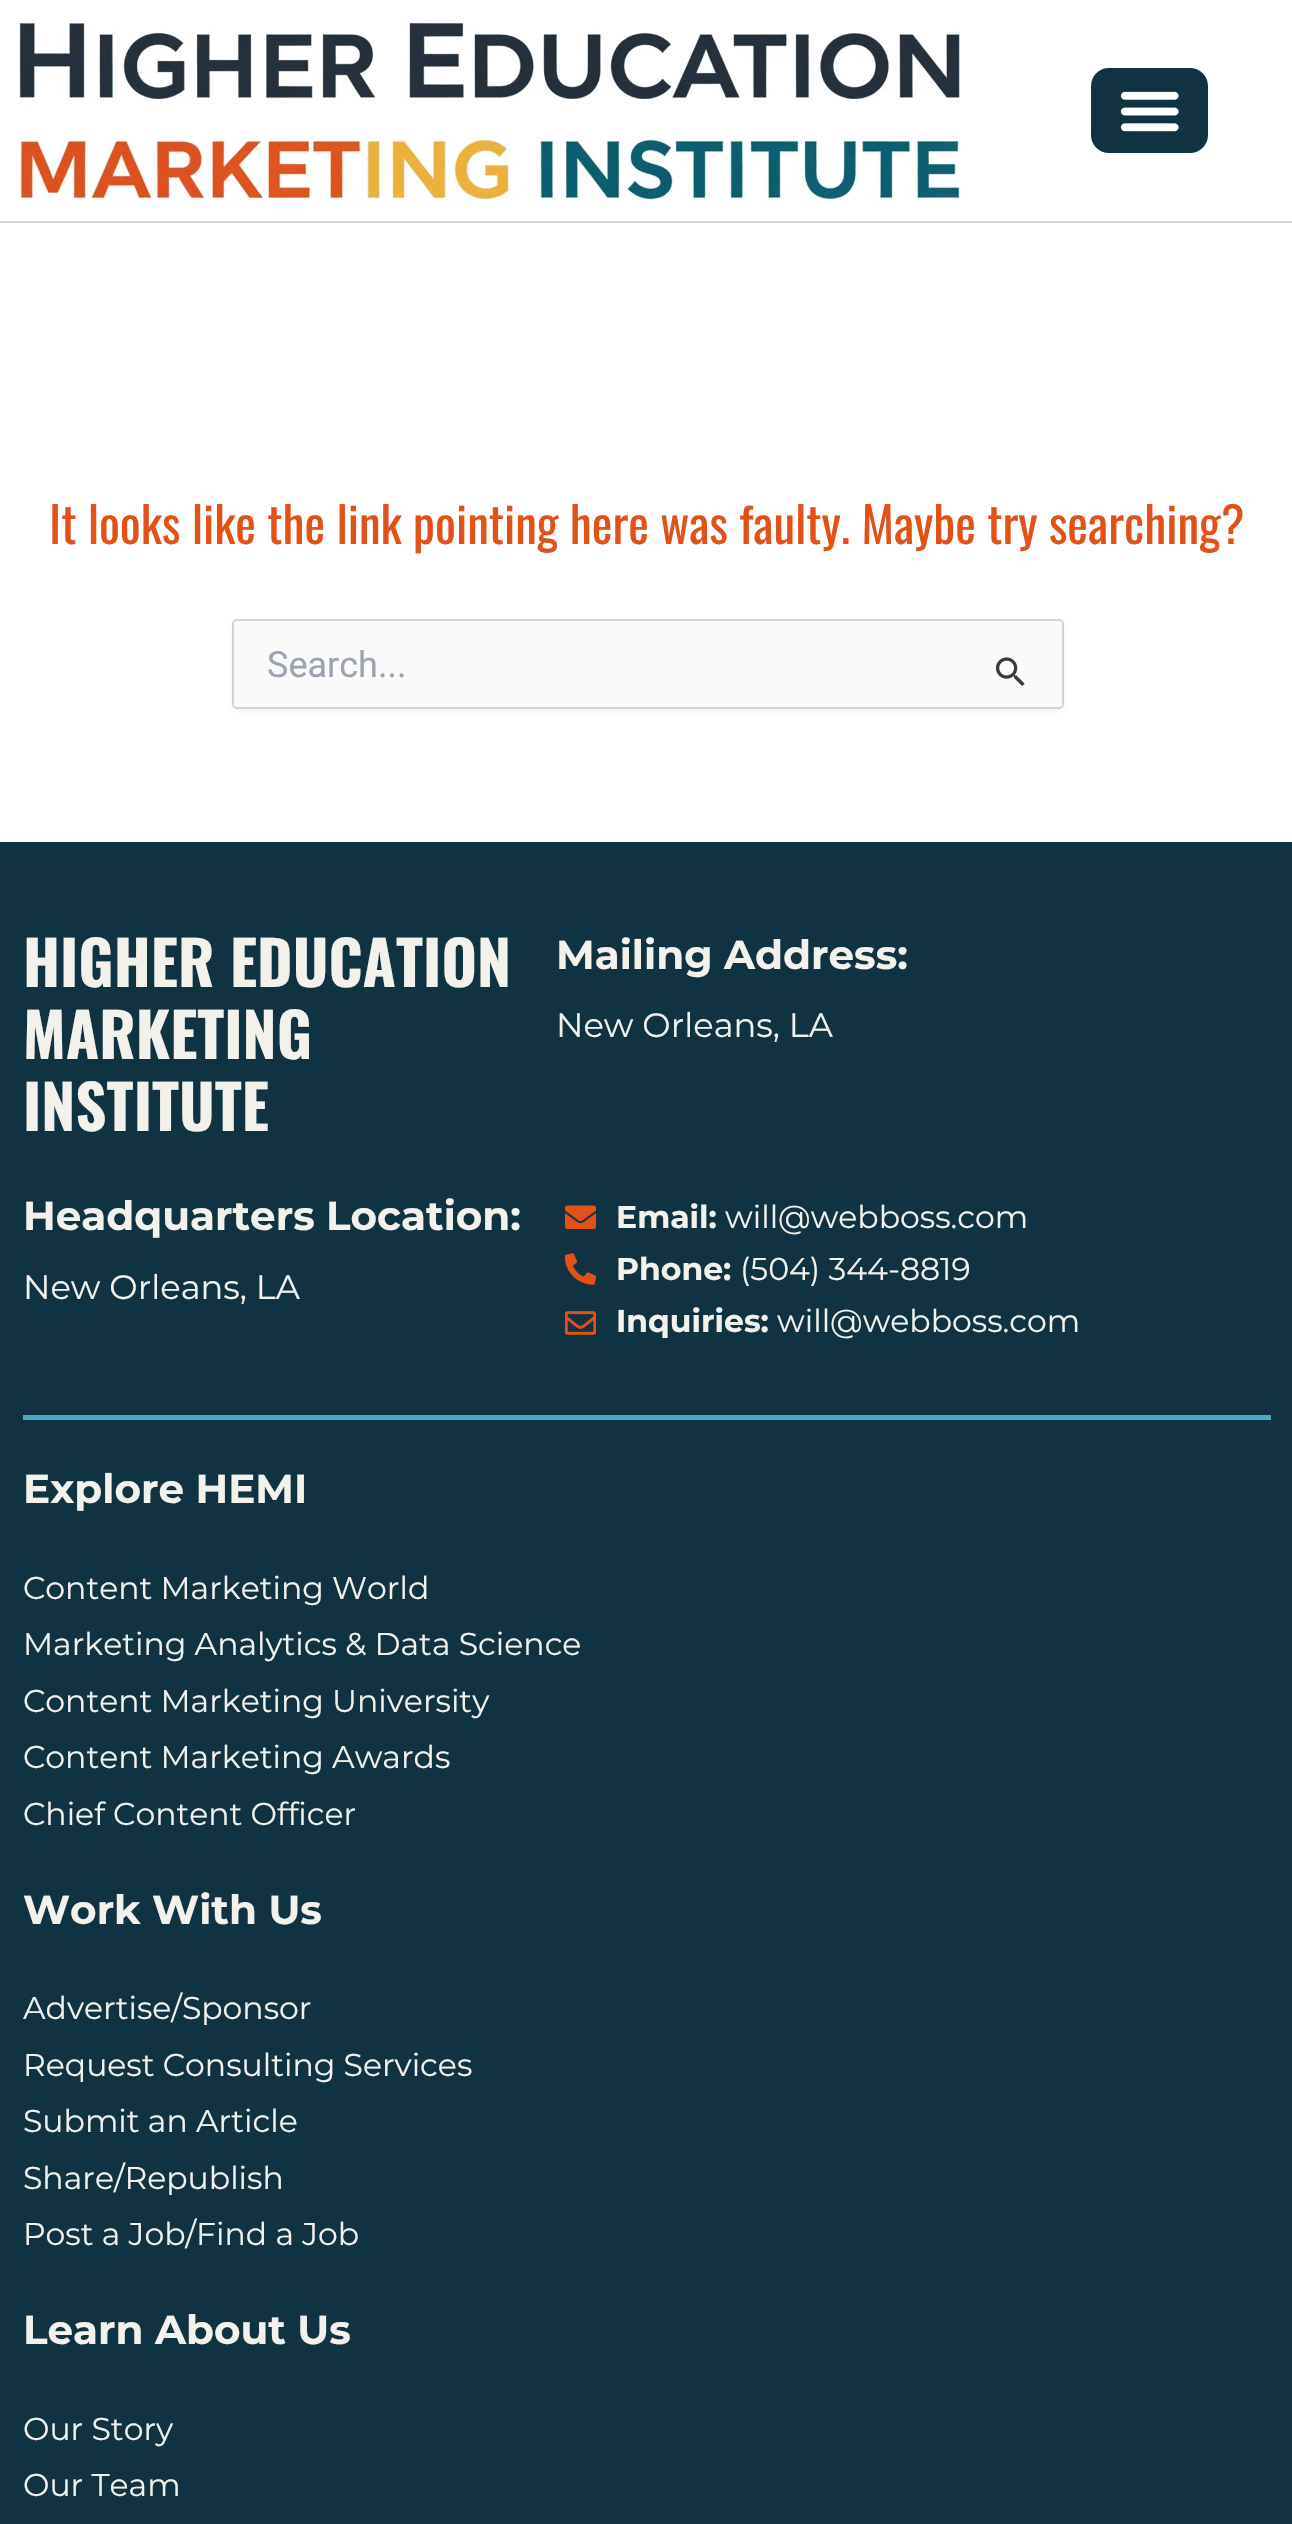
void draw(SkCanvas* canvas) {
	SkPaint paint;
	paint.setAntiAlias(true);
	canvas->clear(0xffffffff);
	paint.setColor(0xffd3d3d3);
	canvas->drawRect(SkRect::MakeXYWH(0, 221, 1292, 2), paint);
	canvas->drawImageRect(SkImages::DeferredFromEncodedData(SkData::MakeFromFileName("img1.png")), SkRect::MakeXYWH(19, 23, 942, 180), SkSamplingOptions());
	paint.setColor(0xff113241);
	canvas->drawRoundRect(SkRect::MakeXYWH(1091, 68, 117, 85), 18, 18, paint);
	canvas->drawImageRect(SkImages::DeferredFromEncodedData(SkData::MakeFromFileName("img2.png")), SkRect::MakeXYWH(1120, 91, 59, 41), SkSamplingOptions());
	SkFont f1(fontMgr->matchFamilyStyle("Oswald", SkFontStyle::Normal()), 49.25);
	f1.setSubpixel(true);
	paint.setColor(0xffe15118);
	canvas->drawString("It looks like the link pointing here was faulty. Maybe try searching?", 49, 544, f1, paint);
	paint.setColor(0x0d000000);
	paint.setMaskFilter(SkMaskFilter::MakeBlur(kNormal_SkBlurStyle, 2));
	canvas->drawRoundRect(SkRect::MakeXYWH(232, 621, 832, 90), 5, 5, paint);
	paint.setMaskFilter(nullptr);
	paint.setColor(0xfffafafa);
	canvas->drawRoundRect(SkRect::MakeXYWH(233, 620, 830, 88), 4, 4, paint);
	paint.setStroke(true);
	paint.setStrokeWidth(2);
	paint.setColor(0xffd1d5db);
	canvas->drawRoundRect(SkRect::MakeXYWH(233, 620, 830, 88), 4, 4, paint);
	SkFont f2(fontMgr->matchFamilyStyle("Roboto", SkFontStyle::Normal()), 36);
	f2.setSubpixel(true);
	paint.setStroke(false);
	paint.setColor(0xff9ca3af);
	canvas->drawString("Search...", 267, 677, f2, paint);
	canvas->drawImageRect(SkImages::DeferredFromEncodedData(SkData::MakeFromFileName("img3.png")), SkRect::MakeXYWH(995, 657, 30, 29), SkSamplingOptions());
	paint.setColor(0xff113341);
	canvas->drawRect(SkRect::MakeXYWH(0, 842, 1292, 1682), paint);
	paint.setColor(0xff49abc0);
	canvas->drawRect(SkRect::MakeXYWH(23, 1415, 1248, 5), paint);
	SkFont f3(fontMgr->matchFamilyStyle("Oswald", SkFontStyle::Bold()), 60.75);
	f3.setSubpixel(true);
	paint.setColor(0xfff3f1eb);
	canvas->drawString("HIGHER EDUCATION", 23, 987, f3, paint);
	canvas->drawString("MARKETING", 23, 1059, f3, paint);
	canvas->drawString("INSTITUTE", 23, 1131, f3, paint);
	SkFont f4(fontMgr->matchFamilyStyle("Montserrat", SkFontStyle::Bold()), 40.5);
	f4.setSubpixel(true);
	canvas->drawString("Mailing Address:", 556, 969, f4, paint);
	SkFont f5(fontMgr->matchFamilyStyle("Montserrat", SkFontStyle::Normal()), 33.75);
	f5.setSubpixel(true);
	canvas->drawString("New Orleans, LA", 556, 1037, f5, paint);
	canvas->drawString("Headquarters Location:", 23, 1230, f4, paint);
	canvas->drawString("New Orleans, LA", 23, 1299, f5, paint);
	canvas->drawImageRect(SkImages::DeferredFromEncodedData(SkData::MakeFromFileName("img4.png")), SkRect::MakeXYWH(565, 1205, 31, 25), SkSamplingOptions());
	SkFont f6(fontMgr->matchFamilyStyle("Montserrat", SkFontStyle::Bold()), 31.5);
	f6.setSubpixel(true);
	canvas->drawString("Email:", 616, 1228, f6, paint);
	SkFont f7(fontMgr->matchFamilyStyle("Montserrat", SkFontStyle::Normal()), 31.5);
	f7.setSubpixel(true);
	canvas->drawString("will@webboss.com", 725, 1228, f7, paint);
	canvas->drawImageRect(SkImages::DeferredFromEncodedData(SkData::MakeFromFileName("img5.png")), SkRect::MakeXYWH(565, 1253, 31, 32), SkSamplingOptions());
	canvas->drawString("Phone:", 616, 1280, f6, paint);
	canvas->drawString("(504) 344-8819", 740, 1280, f7, paint);
	canvas->drawImageRect(SkImages::DeferredFromEncodedData(SkData::MakeFromFileName("img6.png")), SkRect::MakeXYWH(565, 1311, 31, 24), SkSamplingOptions());
	canvas->drawString("Inquiries:", 616, 1332, f6, paint);
	canvas->drawString("will@webboss.com", 777, 1332, f7, paint);
	canvas->drawString("Explore HEMI", 23, 1503, f4, paint);
	canvas->drawString("Content Marketing World", 23, 1599, f7, paint);
	canvas->drawString("Marketing Analytics & Data Science", 23, 1655, f7, paint);
	canvas->drawString("Content Marketing University", 23, 1712, f7, paint);
	canvas->drawString("Content Marketing Awards", 23, 1768, f7, paint);
	canvas->drawString("Chief Content Officer", 23, 1825, f7, paint);
	canvas->drawString("Work With Us", 23, 1924, f4, paint);
	canvas->drawString("Advertise/Sponsor", 23, 2019, f7, paint);
	canvas->drawString("Request Consulting Services", 23, 2076, f7, paint);
	canvas->drawString("Submit an Article", 23, 2132, f7, paint);
	canvas->drawString("Share/Republish", 23, 2189, f7, paint);
	canvas->drawString("Post a Job/Find a Job", 23, 2245, f7, paint);
	canvas->drawString("Learn About Us", 23, 2344, f4, paint);
	canvas->drawString("Our Story", 23, 2440, f7, paint);
	canvas->drawString("Our Team", 23, 2496, f7, paint);
}
